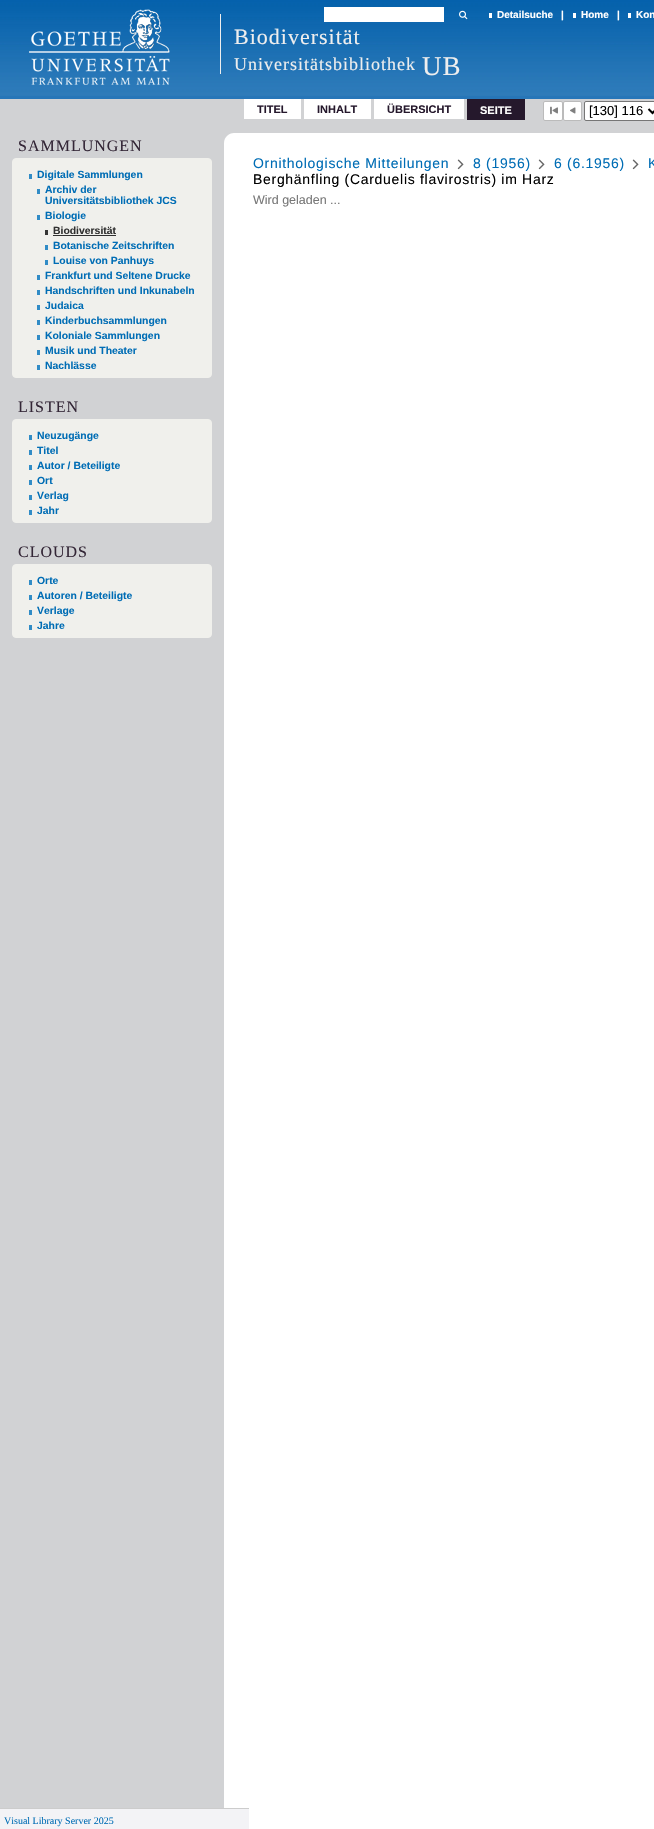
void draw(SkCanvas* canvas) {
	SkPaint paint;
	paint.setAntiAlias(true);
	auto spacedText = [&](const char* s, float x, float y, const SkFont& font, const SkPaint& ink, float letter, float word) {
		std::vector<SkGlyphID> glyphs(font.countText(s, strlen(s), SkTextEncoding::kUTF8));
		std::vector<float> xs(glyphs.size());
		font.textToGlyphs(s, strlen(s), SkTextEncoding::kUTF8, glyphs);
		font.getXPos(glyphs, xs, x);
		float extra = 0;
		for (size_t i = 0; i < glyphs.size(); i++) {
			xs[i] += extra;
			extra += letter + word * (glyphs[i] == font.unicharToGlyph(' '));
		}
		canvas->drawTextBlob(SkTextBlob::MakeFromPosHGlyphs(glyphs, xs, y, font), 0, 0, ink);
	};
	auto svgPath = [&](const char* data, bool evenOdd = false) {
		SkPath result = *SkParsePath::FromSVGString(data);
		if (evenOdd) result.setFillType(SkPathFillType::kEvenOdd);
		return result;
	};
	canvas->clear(0xff2776b8);
	canvas->drawImageRect(SkImages::DeferredFromEncodedData(SkData::MakeFromFileName("img1.png")), SkRect::MakeXYWH(0, 0, 654, 96), SkSamplingOptions());
	canvas->drawImageRect(SkImages::DeferredFromEncodedData(SkData::MakeFromFileName("img2.png")), SkRect::MakeXYWH(29, 9, 141, 76), SkSamplingOptions());
	paint.setColor(0xffffffff);
	canvas->drawRect(SkRect::MakeXYWH(324, 7, 120, 15), paint);
	canvas->drawImageRect(SkImages::DeferredFromEncodedData(SkData::MakeFromFileName("img3.png")), SkRect::MakeXYWH(459, 10, 9, 10), SkSamplingOptions());
	SkFont f1(fontMgr->matchFamilyStyle("Liberation Sans", SkFontStyle::Bold()), 10);
	f1.setSubpixel(true);
	canvas->drawString("Detailsuche", 497, 18, f1, paint);
	canvas->drawRect(SkRect::MakeXYWH(489, 13, 3, 5), paint);
	canvas->drawString("|", 561, 18, f1, paint);
	canvas->drawString("Home", 581, 18, f1, paint);
	canvas->drawRect(SkRect::MakeXYWH(573, 13, 3, 5), paint);
	canvas->drawString("|", 617, 18, f1, paint);
	canvas->drawString("Kon", 636, 18, f1, paint);
	canvas->drawRect(SkRect::MakeXYWH(628, 13, 3, 5), paint);
	paint.setColor(0xffeeeeee);
	canvas->drawRect(SkRect::MakeXYWH(220, 14, 1, 60), paint);
	SkFont f2(fontMgr->matchFamilyStyle("Liberation Serif", SkFontStyle::Normal()), 22);
	f2.setSubpixel(true);
	spacedText("Biodiversität", 234, 44, f2, paint, 1, 0);
	SkFont f3(fontMgr->matchFamilyStyle("Liberation Serif", SkFontStyle::Normal()), 18);
	f3.setSubpixel(true);
	spacedText("Universitätsbibliothek", 234, 70, f3, paint, 1, 0);
	SkFont f4(fontMgr->matchFamilyStyle("Liberation Serif", SkFontStyle::Normal()), 27);
	f4.setSubpixel(true);
	spacedText("UB", 422, 75, f4, paint, 1, 0);
	paint.setColor(0xffd1d2d4);
	canvas->drawRect(SkRect::MakeXYWH(0, 99, 654, 34), paint);
	paint.setColor(0xffffffff);
	canvas->drawRect(SkRect::MakeXYWH(244, 99, 57, 20), paint);
	SkFont f5(fontMgr->matchFamilyStyle("Liberation Sans", SkFontStyle::Bold()), 11);
	f5.setSubpixel(true);
	paint.setColor(0xff25182c);
	canvas->drawString("TITEL", 257, 113, f5, paint);
	paint.setColor(0xffffffff);
	canvas->drawRect(SkRect::MakeXYWH(304, 99, 67, 20), paint);
	paint.setColor(0xff25182c);
	canvas->drawString("INHALT", 317, 113, f5, paint);
	paint.setColor(0xffffffff);
	canvas->drawRect(SkRect::MakeXYWH(374, 99, 90, 20), paint);
	paint.setColor(0xff25182c);
	canvas->drawString("ÜBERSICHT", 387, 113, f5, paint);
	canvas->drawRect(SkRect::MakeXYWH(467, 99, 58, 21), paint);
	paint.setColor(0xffffffff);
	canvas->drawString("SEITE", 480, 114, f5, paint);
	canvas->drawRoundRect(SkRect::MakeXYWH(543.5, 101.5, 19, 19), 1.5, 1.5, paint);
	paint.setStroke(true);
	paint.setStrokeWidth(1);
	paint.setColor(0xffbbbbbb);
	canvas->drawRoundRect(SkRect::MakeXYWH(543.5, 101.5, 19, 19), 1.5, 1.5, paint);
	canvas->drawImageRect(SkImages::DeferredFromEncodedData(SkData::MakeFromFileName("img4.png")), SkRect::MakeXYWH(550, 106, 8, 9), SkSamplingOptions());
	paint.setStroke(false);
	paint.setColor(0xffffffff);
	canvas->drawRoundRect(SkRect::MakeXYWH(563.5, 101.5, 18, 19), 1.5, 1.5, paint);
	paint.setStroke(true);
	paint.setColor(0xffbbbbbb);
	canvas->drawRoundRect(SkRect::MakeXYWH(563.5, 101.5, 18, 19), 1.5, 1.5, paint);
	canvas->drawImageRect(SkImages::DeferredFromEncodedData(SkData::MakeFromFileName("img5.png")), SkRect::MakeXYWH(570, 107, 6, 7), SkSamplingOptions());
	paint.setStroke(false);
	paint.setColor(0xffffffff);
	canvas->drawRoundRect(SkRect::MakeXYWH(584.5, 101.5, 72, 19), 1.5, 1.5, paint);
	paint.setStroke(true);
	paint.setColor(0xff767676);
	canvas->drawRoundRect(SkRect::MakeXYWH(584.5, 101.5, 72, 19), 1.5, 1.5, paint);
	paint.setStrokeWidth(2);
	paint.setColor(0xff000000);
	canvas->drawPath(svgPath("M648.5 109L652.5 113L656.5 109"), paint);
	SkFont f6(fontMgr->matchFamilyStyle("Liberation Sans", SkFontStyle::Normal()), 13);
	f6.setSubpixel(true);
	paint.setStroke(false);
	canvas->drawString("[130] 116", 589, 115, f6, paint);
	paint.setColor(0xffd1d2d4);
	canvas->drawRect(SkRect::MakeXYWH(0, 133, 234, 1675), paint);
	SkFont f7(fontMgr->matchFamilyStyle("Liberation Serif", SkFontStyle::Normal()), 16);
	f7.setSubpixel(true);
	paint.setColor(0xff332636);
	spacedText("SAMMLUNGEN", 18, 151, f7, paint, 1, 0);
	paint.setColor(0xfff0f0ec);
	canvas->drawRoundRect(SkRect::MakeXYWH(12.5, 158.5, 199, 219), 3.5, 3.5, paint);
	paint.setStroke(true);
	paint.setStrokeWidth(1);
	canvas->drawRoundRect(SkRect::MakeXYWH(12.5, 158.5, 199, 219), 3.5, 3.5, paint);
	paint.setStroke(false);
	paint.setColor(0xff318cc6);
	canvas->drawRect(SkRect::MakeXYWH(29, 174, 3, 5), paint);
	SkFont f8(fontMgr->matchFamilyStyle("Liberation Sans", SkFontStyle::Bold()), 10.4);
	f8.setSubpixel(true);
	paint.setColor(0xff006db5);
	canvas->drawString("Digitale Sammlungen", 37, 178, f8, paint);
	paint.setColor(0xff318cc6);
	canvas->drawRect(SkRect::MakeXYWH(37, 189, 3, 5), paint);
	paint.setColor(0xff006db5);
	canvas->drawString("Archiv der", 45, 193, f8, paint);
	canvas->drawString("Universitätsbibliothek JCS", 45, 204, f8, paint);
	paint.setColor(0xff318cc6);
	canvas->drawRect(SkRect::MakeXYWH(37, 215, 3, 5), paint);
	paint.setColor(0xff006db5);
	canvas->drawString("Biologie", 45, 219, f8, paint);
	paint.setColor(0xff343434);
	canvas->drawRect(SkRect::MakeXYWH(45, 230, 3, 5), paint);
	paint.setColor(0xff303030);
	canvas->drawString("Biodiversität", 53, 234, f8, paint);
	canvas->drawRect(SkRect::MakeXYWH(53, 235, 63, 1), paint);
	paint.setColor(0xff318cc6);
	canvas->drawRect(SkRect::MakeXYWH(45, 245, 3, 5), paint);
	paint.setColor(0xff006db5);
	canvas->drawString("Botanische Zeitschriften", 53, 249, f8, paint);
	paint.setColor(0xff318cc6);
	canvas->drawRect(SkRect::MakeXYWH(45, 260, 3, 5), paint);
	paint.setColor(0xff006db5);
	canvas->drawString("Louise von Panhuys", 53, 264, f8, paint);
	paint.setColor(0xff318cc6);
	canvas->drawRect(SkRect::MakeXYWH(37, 275, 3, 5), paint);
	paint.setColor(0xff006db5);
	canvas->drawString("Frankfurt und Seltene Drucke", 45, 279, f8, paint);
	paint.setColor(0xff318cc6);
	canvas->drawRect(SkRect::MakeXYWH(37, 290, 3, 5), paint);
	paint.setColor(0xff006db5);
	canvas->drawString("Handschriften und Inkunabeln", 45, 294, f8, paint);
	paint.setColor(0xff318cc6);
	canvas->drawRect(SkRect::MakeXYWH(37, 305, 3, 5), paint);
	paint.setColor(0xff006db5);
	canvas->drawString("Judaica", 45, 309, f8, paint);
	paint.setColor(0xff318cc6);
	canvas->drawRect(SkRect::MakeXYWH(37, 320, 3, 5), paint);
	paint.setColor(0xff006db5);
	canvas->drawString("Kinderbuchsammlungen", 45, 324, f8, paint);
	paint.setColor(0xff318cc6);
	canvas->drawRect(SkRect::MakeXYWH(37, 335, 3, 5), paint);
	paint.setColor(0xff006db5);
	canvas->drawString("Koloniale Sammlungen", 45, 339, f8, paint);
	paint.setColor(0xff318cc6);
	canvas->drawRect(SkRect::MakeXYWH(37, 350, 3, 5), paint);
	paint.setColor(0xff006db5);
	canvas->drawString("Musik und Theater", 45, 354, f8, paint);
	paint.setColor(0xff318cc6);
	canvas->drawRect(SkRect::MakeXYWH(37, 365, 3, 5), paint);
	paint.setColor(0xff006db5);
	canvas->drawString("Nachlässe", 45, 369, f8, paint);
	paint.setColor(0xff332636);
	spacedText("LISTEN", 18, 412, f7, paint, 1, 0);
	paint.setColor(0xfff0f0ec);
	canvas->drawRoundRect(SkRect::MakeXYWH(12.5, 419.5, 199, 103), 3.5, 3.5, paint);
	paint.setStroke(true);
	canvas->drawRoundRect(SkRect::MakeXYWH(12.5, 419.5, 199, 103), 3.5, 3.5, paint);
	paint.setStroke(false);
	paint.setColor(0xff318cc6);
	canvas->drawRect(SkRect::MakeXYWH(29, 435, 3, 5), paint);
	paint.setColor(0xff006db5);
	canvas->drawString("Neuzugänge", 37, 439, f8, paint);
	paint.setColor(0xff318cc6);
	canvas->drawRect(SkRect::MakeXYWH(29, 450, 3, 5), paint);
	paint.setColor(0xff006db5);
	canvas->drawString("Titel", 37, 454, f8, paint);
	paint.setColor(0xff318cc6);
	canvas->drawRect(SkRect::MakeXYWH(29, 465, 3, 5), paint);
	paint.setColor(0xff006db5);
	canvas->drawString("Autor / Beteiligte", 37, 469, f8, paint);
	paint.setColor(0xff318cc6);
	canvas->drawRect(SkRect::MakeXYWH(29, 480, 3, 5), paint);
	paint.setColor(0xff006db5);
	canvas->drawString("Ort", 37, 484, f8, paint);
	paint.setColor(0xff318cc6);
	canvas->drawRect(SkRect::MakeXYWH(29, 495, 3, 5), paint);
	paint.setColor(0xff006db5);
	canvas->drawString("Verlag", 37, 499, f8, paint);
	paint.setColor(0xff318cc6);
	canvas->drawRect(SkRect::MakeXYWH(29, 510, 3, 5), paint);
	paint.setColor(0xff006db5);
	canvas->drawString("Jahr", 37, 514, f8, paint);
	paint.setColor(0xff332636);
	spacedText("CLOUDS", 18, 557, f7, paint, 1, 0);
	paint.setColor(0xfff0f0ec);
	canvas->drawRoundRect(SkRect::MakeXYWH(12.5, 564.5, 199, 73), 3.5, 3.5, paint);
	paint.setStroke(true);
	canvas->drawRoundRect(SkRect::MakeXYWH(12.5, 564.5, 199, 73), 3.5, 3.5, paint);
	paint.setStroke(false);
	paint.setColor(0xff318cc6);
	canvas->drawRect(SkRect::MakeXYWH(29, 580, 3, 5), paint);
	paint.setColor(0xff006db5);
	canvas->drawString("Orte", 37, 584, f8, paint);
	paint.setColor(0xff318cc6);
	canvas->drawRect(SkRect::MakeXYWH(29, 595, 3, 5), paint);
	paint.setColor(0xff006db5);
	canvas->drawString("Autoren / Beteiligte", 37, 599, f8, paint);
	paint.setColor(0xff318cc6);
	canvas->drawRect(SkRect::MakeXYWH(29, 610, 3, 5), paint);
	paint.setColor(0xff006db5);
	canvas->drawString("Verlage", 37, 614, f8, paint);
	paint.setColor(0xff318cc6);
	canvas->drawRect(SkRect::MakeXYWH(29, 625, 3, 5), paint);
	paint.setColor(0xff006db5);
	canvas->drawString("Jahre", 37, 629, f8, paint);
	paint.setColor(0xffffffff);
	canvas->drawPath(svgPath("M234 133H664V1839H224V143C224 137.5 228.5 133 234 133Z"), paint);
	SkFont f9(fontMgr->matchFamilyStyle("Liberation Sans", SkFontStyle::Normal()), 14);
	f9.setSubpixel(true);
	paint.setColor(0xff006db5);
	spacedText("Ornithologische Mitteilungen", 253, 168, f9, paint, 0.7, 0);
	canvas->drawImageRect(SkImages::DeferredFromEncodedData(SkData::MakeFromFileName("img6.png")), SkRect::MakeXYWH(457, 159, 7, 11), SkSamplingOptions());
	spacedText("8 (1956)", 473, 168, f9, paint, 0.7, 0);
	canvas->drawImageRect(SkImages::DeferredFromEncodedData(SkData::MakeFromFileName("img6.png")), SkRect::MakeXYWH(538, 159, 7, 11), SkSamplingOptions());
	spacedText("6 (6.1956)", 554, 168, f9, paint, 0.7, 0);
	canvas->drawImageRect(SkImages::DeferredFromEncodedData(SkData::MakeFromFileName("img6.png")), SkRect::MakeXYWH(632, 159, 7, 11), SkSamplingOptions());
	spacedText("K", 648, 168, f9, paint, 0.7, 0);
	paint.setColor(0xff000000);
	spacedText("Berghänfling (Carduelis flavirostris) im Harz", 253, 184, f9, paint, 0.7, 0);
	SkFont f10(fontMgr->matchFamilyStyle("Liberation Sans", SkFontStyle::Normal()), 12.5);
	f10.setSubpixel(true);
	paint.setColor(0xff777777);
	canvas->drawString("Wird geladen ...", 253, 204, f10, paint);
	paint.setColor(0xfff3f3f6);
	canvas->drawRect(SkRect::MakeXYWH(0, 1809, 249, 20), paint);
	paint.setColor(0xffcccccc);
	canvas->drawRect(SkRect::MakeXYWH(0, 1808, 249, 1), paint);
	SkFont f11(fontMgr->matchFamilyStyle("Liberation Serif", SkFontStyle::Normal()), 10);
	f11.setSubpixel(true);
	paint.setColor(0xff006db5);
	canvas->drawString("Visual Library Server 2025", 4, 1824, f11, paint);
}
